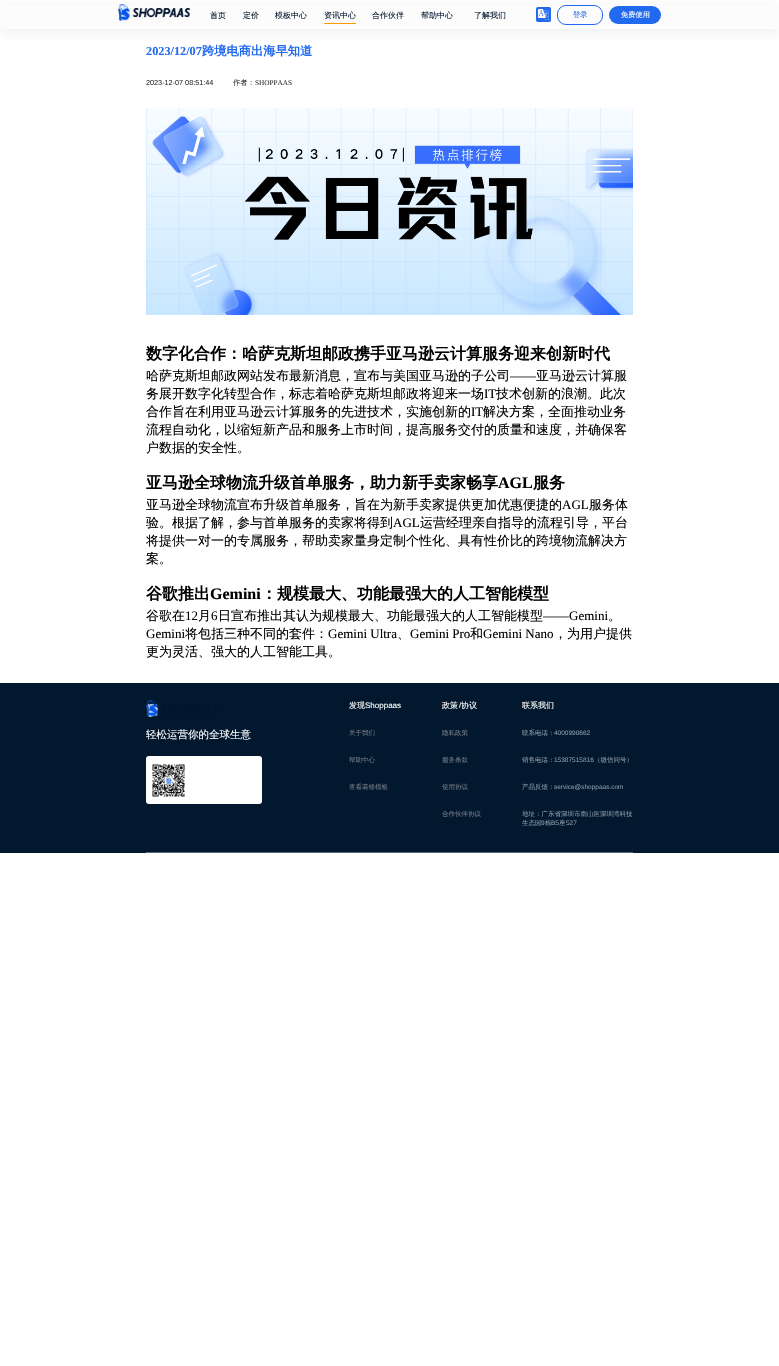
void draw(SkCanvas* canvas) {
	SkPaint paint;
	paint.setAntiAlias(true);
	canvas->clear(0xffffffff);
	paint.setColor(0x0f162435);
	paint.setMaskFilter(SkMaskFilter::MakeBlur(kNormal_SkBlurStyle, 6));
	canvas->drawRect(SkRect::MakeXYWH(0, 6, 779, 29), paint);
	paint.setMaskFilter(nullptr);
	paint.setColor(0xfffcfcfc);
	canvas->drawRect(SkRect::MakeXYWH(0, 5, 779, 24), paint);
	canvas->drawImageRect(SkImages::DeferredFromEncodedData(SkData::MakeFromFileName("img1.png")), SkRect::MakeXYWH(118, 4, 72, 17), SkSamplingOptions());
	SkFont f1(fontMgr->matchFamilyStyle("WenQuanYi Zen Hei", SkFontStyle(500, SkFontStyle::kNormal_Width, SkFontStyle::kUpright_Slant)), 8);
	f1.setSubpixel(true);
	paint.setColor(0xff00142d);
	canvas->drawString("首页", 210, 18, f1, paint);
	canvas->drawString("定价", 243, 18, f1, paint);
	canvas->drawString("模板中心", 275, 18, f1, paint);
	canvas->drawString("资讯中心", 324, 18, f1, paint);
	paint.setColor(0xffff9900);
	canvas->drawRoundRect(SkRect::MakeXYWH(324, 23, 32, 1), 0.5, 0.5, paint);
	paint.setColor(0xff00142d);
	canvas->drawString("合作伙伴", 372, 18, f1, paint);
	canvas->drawString("帮助中心", 421, 18, f1, paint);
	canvas->drawString("了解我们", 474, 18, f1, paint);
	paint.setColor(0xff2169ee);
	canvas->drawRoundRect(SkRect::MakeXYWH(536, 7, 15, 15), 2, 2, paint);
	canvas->drawImageRect(SkImages::DeferredFromEncodedData(SkData::MakeFromFileName("img2.png")), SkRect::MakeXYWH(538, 9, 11, 11), SkSamplingOptions());
	paint.setStroke(true);
	paint.setStrokeWidth(1);
	canvas->drawRoundRect(SkRect::MakeXYWH(557.5, 5.5, 45, 19), 8.5, 8.5, paint);
	SkFont f2(fontMgr->matchFamilyStyle("WenQuanYi Zen Hei", SkFontStyle(500, SkFontStyle::kNormal_Width, SkFontStyle::kUpright_Slant)), 7.25);
	f2.setSubpixel(true);
	paint.setStroke(false);
	canvas->drawString("登录", 573, 17, f2, paint);
	canvas->drawRoundRect(SkRect::MakeXYWH(609, 6, 52, 18), 9, 9, paint);
	paint.setColor(0xffffffff);
	canvas->drawString("免费使用", 621, 17, f2, paint);
	SkFont f3(fontMgr->matchFamilyStyle("Liberation Serif", SkFontStyle::Bold()), 12.25);
	f3.setSubpixel(true);
	paint.setColor(0xff2169ee);
	canvas->drawString("2023/12/07", 146, 55, f3, paint);
	SkFont f4(fontMgr->matchFamilyStyle("WenQuanYi Zen Hei", SkFontStyle::Bold()), 12.25);
	f4.setSubpixel(true);
	canvas->drawString("跨境电商出海早知道", 202, 55, f4, paint);
	SkFont f5(fontMgr->matchFamilyStyle("Liberation Sans", SkFontStyle::Normal()), 7.25);
	f5.setSubpixel(true);
	paint.setColor(0xff333333);
	canvas->drawString("2023-12-07 08:51:44", 146, 85, f5, paint);
	canvas->drawString("作者：", 233, 85, f2, paint);
	SkFont f6(fontMgr->matchFamilyStyle("Liberation Serif", SkFontStyle::Normal()), 7.25);
	f6.setSubpixel(true);
	canvas->drawString("SHOPPAAS", 255, 85, f6, paint);
	canvas->drawImageRect(SkImages::DeferredFromEncodedData(SkData::MakeFromFileName("img3.png")), SkRect::MakeXYWH(146, 108, 487, 207), SkSamplingOptions());
	SkFont f7(fontMgr->matchFamilyStyle("WenQuanYi Zen Hei", SkFontStyle::Bold()), 16);
	f7.setSubpixel(true);
	paint.setColor(0xff000000);
	canvas->drawString("数字化合作：哈萨克斯坦邮政携手亚马逊云计算服务迎来创新时代", 146, 359, f7, paint);
	SkFont f8(fontMgr->matchFamilyStyle("WenQuanYi Zen Hei", SkFontStyle(500, SkFontStyle::kNormal_Width, SkFontStyle::kUpright_Slant)), 13);
	f8.setSubpixel(true);
	canvas->drawString("哈萨克斯坦邮政网站发布最新消息，宣布与美国亚马逊的子公司", 146, 380, f8, paint);
	SkFont f9(fontMgr->matchFamilyStyle("Liberation Serif", SkFontStyle::Normal()), 13);
	f9.setSubpixel(true);
	canvas->drawString("——", 510, 380, f9, paint);
	canvas->drawString("亚马逊云计算服", 536, 380, f8, paint);
	canvas->drawString("务展开数字化转型合作，标志着哈萨克斯坦邮政将迎来一场", 146, 398, f8, paint);
	canvas->drawString("IT", 484, 398, f9, paint);
	canvas->drawString("技术创新的浪潮。此次", 496, 398, f8, paint);
	canvas->drawString("合作旨在利用亚马逊云计算服务的先进技术，实施创新的", 146, 416, f8, paint);
	canvas->drawString("IT", 471, 416, f9, paint);
	canvas->drawString("解决方案，全面推动业务", 483, 416, f8, paint);
	canvas->drawString("流程自动化，以缩短新产品和服务上市时间，提高服务交付的质量和速度，并确保客", 146, 434, f8, paint);
	canvas->drawString("户数据的安全性。", 146, 452, f8, paint);
	canvas->drawString("亚马逊全球物流升级首单服务，助力新手卖家畅享", 146, 488, f7, paint);
	SkFont f10(fontMgr->matchFamilyStyle("Liberation Serif", SkFontStyle::Bold()), 16);
	f10.setSubpixel(true);
	canvas->drawString("AGL", 498, 488, f10, paint);
	canvas->drawString("服务", 533, 488, f7, paint);
	canvas->drawString("亚马逊全球物流宣布升级首单服务，旨在为新手卖家提供更加优惠便捷的", 146, 509, f8, paint);
	canvas->drawString("AGL", 562, 509, f9, paint);
	canvas->drawString("服务体", 589, 509, f8, paint);
	canvas->drawString("验。根据了解，参与首单服务的卖家将得到", 146, 527, f8, paint);
	canvas->drawString("AGL", 393, 527, f9, paint);
	canvas->drawString("运营经理亲自指导的流程引导，平台", 420, 527, f8, paint);
	canvas->drawString("将提供一对一的专属服务，帮助卖家量身定制个性化、具有性价比的跨境物流解决方", 146, 545, f8, paint);
	canvas->drawString("案。", 146, 563, f8, paint);
	canvas->drawString("谷歌推出", 146, 599, f7, paint);
	canvas->drawString("Gemini", 210, 599, f10, paint);
	canvas->drawString("：规模最大、功能最强大的人工智能模型", 261, 599, f7, paint);
	canvas->drawString("谷歌在", 146, 620, f8, paint);
	canvas->drawString("12", 185, 620, f9, paint);
	canvas->drawString("月", 198, 620, f8, paint);
	canvas->drawString("6", 211, 620, f9, paint);
	canvas->drawString("日宣布推出其认为规模最大、功能最强大的人工智能模型", 218, 620, f8, paint);
	canvas->drawString("——Gemini", 543, 620, f9, paint);
	canvas->drawString("。", 608, 620, f8, paint);
	canvas->drawString("Gemini", 146, 638, f9, paint);
	canvas->drawString("将包括三种不同的套件：", 185, 638, f8, paint);
	canvas->drawString("Gemini Ultra", 328, 638, f9, paint);
	canvas->drawString("、", 397, 638, f8, paint);
	canvas->drawString("Gemini Pro", 410, 638, f9, paint);
	canvas->drawString("和", 470, 638, f8, paint);
	canvas->drawString("Gemini Nano", 483, 638, f9, paint);
	canvas->drawString("，为用户提供", 554, 638, f8, paint);
	canvas->drawString("更为灵活、强大的人工智能工具。", 146, 656, f8, paint);
	paint.setColor(0xff02182e);
	canvas->drawRect(SkRect::MakeXYWH(0, 683, 779, 170), paint);
	canvas->drawImageRect(SkImages::DeferredFromEncodedData(SkData::MakeFromFileName("img4.png")), SkRect::MakeXYWH(146, 700, 71, 17), SkSamplingOptions());
	SkFont f11(fontMgr->matchFamilyStyle("WenQuanYi Zen Hei", SkFontStyle(500, SkFontStyle::kNormal_Width, SkFontStyle::kUpright_Slant)), 10.5);
	f11.setSubpixel(true);
	paint.setColor(0xffffffff);
	canvas->drawString("轻松运营你的全球生意", 146, 738, f11, paint);
	canvas->drawRoundRect(SkRect::MakeXYWH(146, 756, 116, 48), 3, 3, paint);
	canvas->drawImageRect(SkImages::DeferredFromEncodedData(SkData::MakeFromFileName("img5.png")), SkRect::MakeXYWH(152, 764, 33, 33), SkSamplingOptions());
	canvas->drawString("发现", 349, 708, f1, paint);
	SkFont f12(fontMgr->matchFamilyStyle("Liberation Sans", SkFontStyle::Normal()), 8);
	f12.setSubpixel(true);
	canvas->drawString("Shoppaas", 365, 708, f12, paint);
	SkFont f13(fontMgr->matchFamilyStyle("WenQuanYi Zen Hei", SkFontStyle(500, SkFontStyle::kNormal_Width, SkFontStyle::kUpright_Slant)), 6.5);
	f13.setSubpixel(true);
	paint.setColor(0xff727b87);
	canvas->drawString("关于我们", 349, 735, f13, paint);
	canvas->drawString("帮助中心", 349, 762, f13, paint);
	canvas->drawString("查看装修模板", 349, 789, f13, paint);
	paint.setColor(0xffffffff);
	canvas->drawString("政策", 442, 708, f1, paint);
	canvas->drawString("/", 459, 708, f12, paint);
	canvas->drawString("协议", 461, 708, f1, paint);
	paint.setColor(0xff727b87);
	canvas->drawString("隐私政策", 442, 735, f13, paint);
	canvas->drawString("服务条款", 442, 762, f13, paint);
	canvas->drawString("使用协议", 442, 789, f13, paint);
	canvas->drawString("合作伙伴协议", 442, 816, f13, paint);
	paint.setColor(0xffffffff);
	canvas->drawString("联系我们", 522, 708, f1, paint);
	paint.setColor(0xff8c99a6);
	canvas->drawString("联系电话：", 522, 735, f13, paint);
	SkFont f14(fontMgr->matchFamilyStyle("Liberation Sans", SkFontStyle::Normal()), 6.5);
	f14.setSubpixel(true);
	canvas->drawString("4000990662", 554, 735, f14, paint);
	canvas->drawString("销售电话：", 522, 762, f13, paint);
	canvas->drawString("15387515816", 554, 762, f14, paint);
	canvas->drawString("（微信同号）", 594, 762, f13, paint);
	canvas->drawString("产品反馈：", 522, 789, f13, paint);
	canvas->drawString("service@shoppaas.com", 554, 789, f14, paint);
	canvas->drawString("地址：广东省深圳市南山区深圳湾科技", 522, 816, f13, paint);
	canvas->drawString("生态园", 522, 825, f13, paint);
	canvas->drawString("9", 541, 825, f14, paint);
	canvas->drawString("栋", 545, 825, f13, paint);
	canvas->drawString("B5", 551, 825, f14, paint);
	canvas->drawString("座", 559, 825, f13, paint);
	canvas->drawString("527", 566, 825, f14, paint);
	paint.setColor(0xff5a6976);
	canvas->drawRect(SkRect::MakeXYWH(146, 852, 487, 1), paint);
}
